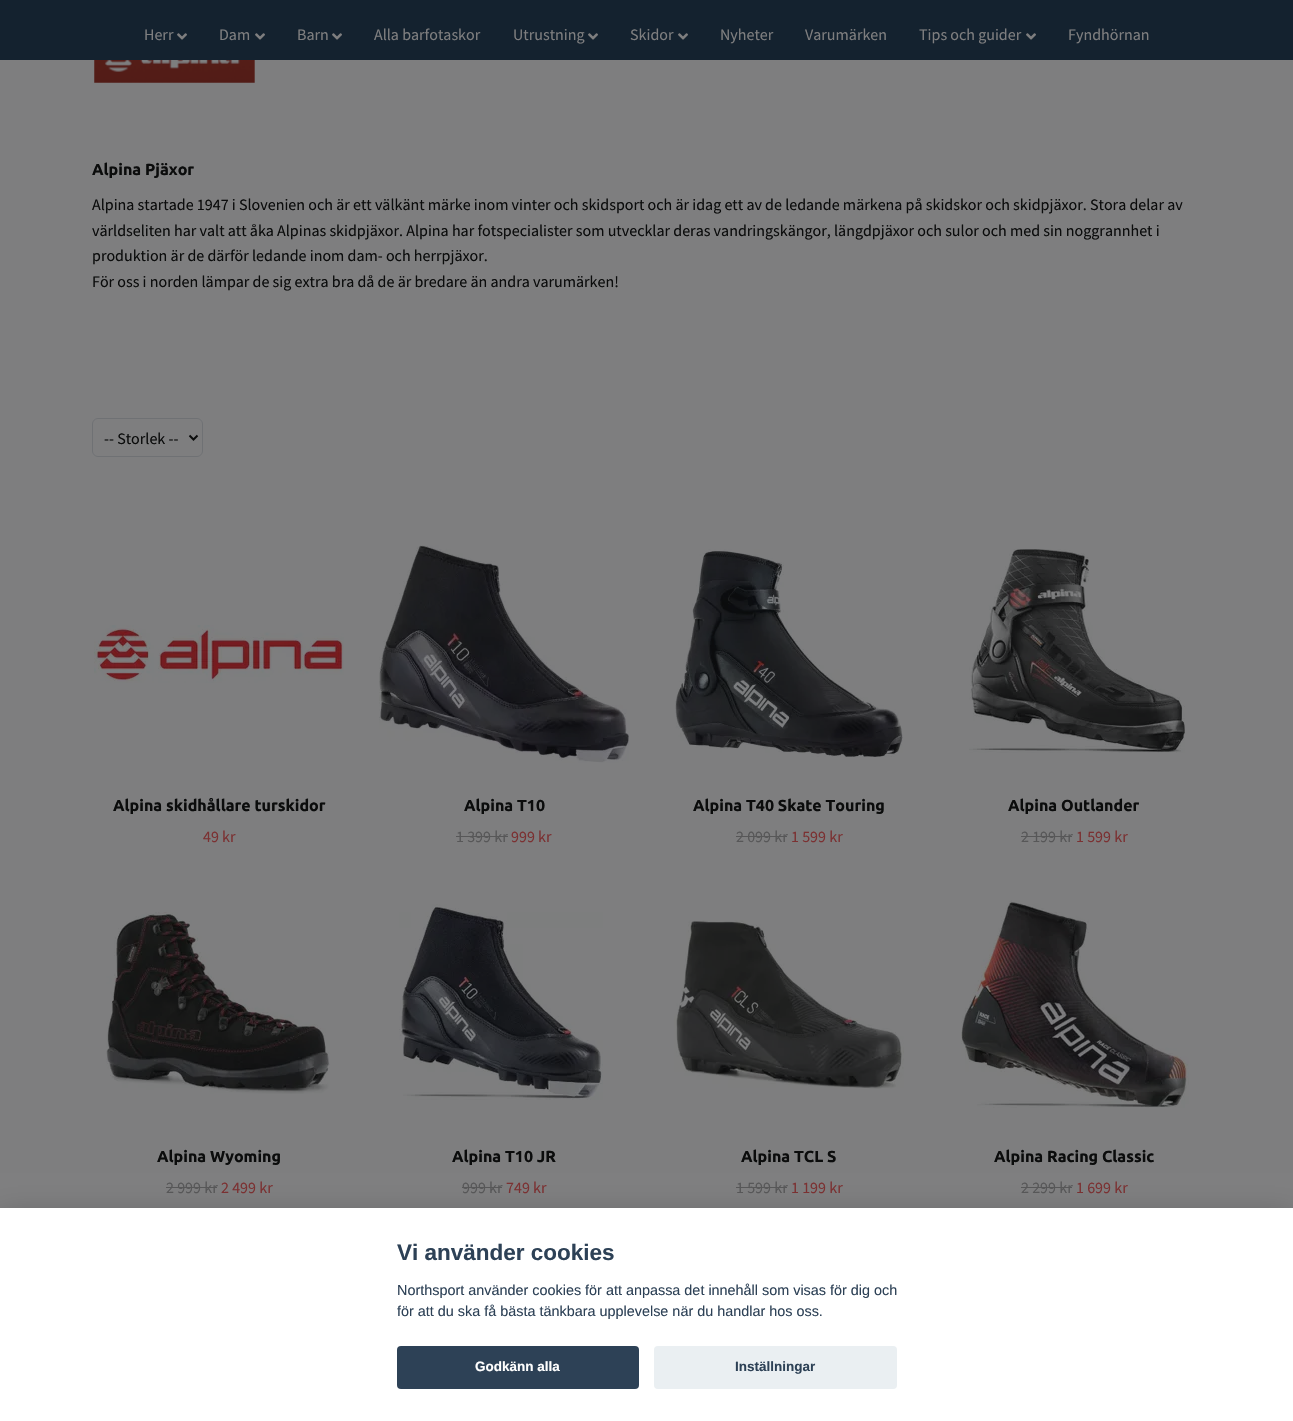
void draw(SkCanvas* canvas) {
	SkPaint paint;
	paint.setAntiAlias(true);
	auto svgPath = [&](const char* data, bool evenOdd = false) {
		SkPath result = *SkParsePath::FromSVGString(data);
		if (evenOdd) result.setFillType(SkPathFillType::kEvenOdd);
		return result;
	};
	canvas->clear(0xff7e7e7f);
	paint.setColor(0xff14222f);
	canvas->drawRect(SkRect::MakeXYWH(0, 0, 1293, 60), paint);
	SkFont f1(fontMgr->matchFamilyStyle("Source Sans Pro", SkFontStyle::Normal()), 16);
	f1.setSubpixel(true);
	paint.setColor(0xff7e7e7f);
	canvas->drawString("Herr", 144, 40, f1, paint);
	canvas->drawImageRect(SkImages::DeferredFromEncodedData(SkData::MakeFromFileName("img1.png")), SkRect::MakeXYWH(177, 33, 10, 7), SkSamplingOptions());
	canvas->drawString("Dam", 219, 40, f1, paint);
	canvas->drawImageRect(SkImages::DeferredFromEncodedData(SkData::MakeFromFileName("img1.png")), SkRect::MakeXYWH(255, 33, 10, 7), SkSamplingOptions());
	canvas->drawString("Barn", 297, 40, f1, paint);
	canvas->drawImageRect(SkImages::DeferredFromEncodedData(SkData::MakeFromFileName("img1.png")), SkRect::MakeXYWH(332, 33, 10, 7), SkSamplingOptions());
	canvas->drawString("Alla barfotaskor", 374, 40, f1, paint);
	canvas->drawString("Utrustning", 513, 40, f1, paint);
	canvas->drawImageRect(SkImages::DeferredFromEncodedData(SkData::MakeFromFileName("img1.png")), SkRect::MakeXYWH(588, 33, 10, 7), SkSamplingOptions());
	canvas->drawString("Skidor", 630, 40, f1, paint);
	canvas->drawImageRect(SkImages::DeferredFromEncodedData(SkData::MakeFromFileName("img1.png")), SkRect::MakeXYWH(678, 33, 10, 7), SkSamplingOptions());
	canvas->drawString("Nyheter", 720, 40, f1, paint);
	canvas->drawString("Varumärken", 805, 40, f1, paint);
	canvas->drawString("Tips och guider", 919, 40, f1, paint);
	canvas->drawImageRect(SkImages::DeferredFromEncodedData(SkData::MakeFromFileName("img1.png")), SkRect::MakeXYWH(1026, 33, 10, 7), SkSamplingOptions());
	canvas->drawString("Fyndhörnan", 1068, 40, f1, paint);
	canvas->drawImageRect(SkImages::DeferredFromEncodedData(SkData::MakeFromFileName("img2.png")), SkRect::MakeXYWH(94, 60, 161, 23), SkSamplingOptions());
	SkFont f2(fontMgr->matchFamilyStyle("Ubuntu", SkFontStyle::Bold()), 16);
	f2.setSubpixel(true);
	paint.setColor(0xff0b0c0c);
	canvas->drawString("Alpina Pjäxor", 92, 175, f2, paint);
	canvas->drawString("Alpina startade 1947 i Slovenien och är ett välkänt märke inom vinter och skidsport och är idag ett av de ledande märkena på skidskor och skidpjäxor. Stora delar av", 92, 210, f1, paint);
	canvas->drawString("världseliten har valt att åka Alpinas skidpjäxor. Alpina har fotspecialister som utvecklar deras vandringskängor, längdpjäxor och sulor och med sin noggrannhet i", 92, 236, f1, paint);
	canvas->drawString("produktion är de därför ledande inom dam- och herrpjäxor.", 92, 261, f1, paint);
	canvas->drawString("För oss i norden lämpar de sig extra bra då de är bredare än andra varumärken!", 92, 287, f1, paint);
	paint.setStroke(true);
	paint.setStrokeWidth(1);
	paint.setColor(0xff6f7174);
	canvas->drawRoundRect(SkRect::MakeXYWH(92.5, 418.5, 110, 38), 5.5, 5.5, paint);
	paint.setStrokeWidth(2);
	paint.setColor(0xff0b0c0c);
	canvas->drawPath(svgPath("M189.5 435.5L193.5 439.5L197.5 435.5"), paint);
	paint.setStroke(false);
	canvas->drawString("-- Storlek --", 104, 444, f1, paint);
	canvas->drawImageRect(SkImages::DeferredFromEncodedData(SkData::MakeFromFileName("img3.png")), SkRect::MakeXYWH(94, 625, 250, 58), SkSamplingOptions());
	canvas->drawString("Alpina skidhållare turskidor", 113, 811, f2, paint);
	paint.setColor(0xff7b3132);
	canvas->drawString("49 kr", 203, 842, f1, paint);
	canvas->drawImageRect(SkImages::DeferredFromEncodedData(SkData::MakeFromFileName("img4.png")), SkRect::MakeXYWH(379, 545, 250, 218), SkSamplingOptions());
	paint.setColor(0xff0b0c0c);
	canvas->drawString("Alpina T10", 464, 811, f2, paint);
	paint.setColor(0xff575758);
	canvas->drawString("1 399 kr", 456, 842, f1, paint);
	canvas->drawRect(SkRect::MakeXYWH(456, 836, 52, 1), paint);
	paint.setColor(0xff7b3132);
	canvas->drawString("999 kr", 511, 842, f1, paint);
	canvas->drawImageRect(SkImages::DeferredFromEncodedData(SkData::MakeFromFileName("img5.png")), SkRect::MakeXYWH(675, 549, 228, 208), SkSamplingOptions());
	paint.setColor(0xff0b0c0c);
	canvas->drawString("Alpina T40 Skate Touring", 693, 811, f2, paint);
	paint.setColor(0xff575758);
	canvas->drawString("2 099 kr", 736, 842, f1, paint);
	canvas->drawRect(SkRect::MakeXYWH(736, 836, 51, 1), paint);
	paint.setColor(0xff7b3132);
	canvas->drawString("1 599 kr", 791, 842, f1, paint);
	canvas->drawImageRect(SkImages::DeferredFromEncodedData(SkData::MakeFromFileName("img6.png")), SkRect::MakeXYWH(969, 549, 216, 204), SkSamplingOptions());
	paint.setColor(0xff0b0c0c);
	canvas->drawString("Alpina Outlander", 1008, 811, f2, paint);
	paint.setColor(0xff575758);
	canvas->drawString("2 199 kr", 1021, 842, f1, paint);
	canvas->drawRect(SkRect::MakeXYWH(1021, 836, 51, 1), paint);
	paint.setColor(0xff7b3132);
	canvas->drawString("1 599 kr", 1076, 842, f1, paint);
	canvas->drawImageRect(SkImages::DeferredFromEncodedData(SkData::MakeFromFileName("img7.png")), SkRect::MakeXYWH(106, 912, 224, 182), SkSamplingOptions());
	paint.setColor(0xff0b0c0c);
	canvas->drawString("Alpina Wyoming", 157, 1162, f2, paint);
	paint.setColor(0xff575758);
	canvas->drawString("2 999 kr", 166, 1193, f1, paint);
	canvas->drawRect(SkRect::MakeXYWH(166, 1187, 51, 1), paint);
	paint.setColor(0xff7b3132);
	canvas->drawString("2 499 kr", 221, 1193, f1, paint);
	canvas->drawImageRect(SkImages::DeferredFromEncodedData(SkData::MakeFromFileName("img8.png")), SkRect::MakeXYWH(399, 904, 204, 196), SkSamplingOptions());
	paint.setColor(0xff0b0c0c);
	canvas->drawString("Alpina T10 JR", 452, 1162, f2, paint);
	paint.setColor(0xff575758);
	canvas->drawString("999 kr", 462, 1193, f1, paint);
	canvas->drawRect(SkRect::MakeXYWH(462, 1187, 40, 1), paint);
	paint.setColor(0xff7b3132);
	canvas->drawString("749 kr", 506, 1193, f1, paint);
	canvas->drawImageRect(SkImages::DeferredFromEncodedData(SkData::MakeFromFileName("img9.png")), SkRect::MakeXYWH(674, 920, 230, 169), SkSamplingOptions());
	paint.setColor(0xff0b0c0c);
	canvas->drawString("Alpina TCL S", 741, 1162, f2, paint);
	paint.setColor(0xff575758);
	canvas->drawString("1 599 kr", 736, 1193, f1, paint);
	canvas->drawRect(SkRect::MakeXYWH(736, 1187, 51, 1), paint);
	paint.setColor(0xff7b3132);
	canvas->drawString("1 199 kr", 791, 1193, f1, paint);
	canvas->drawImageRect(SkImages::DeferredFromEncodedData(SkData::MakeFromFileName("img10.png")), SkRect::MakeXYWH(961, 900, 228, 208), SkSamplingOptions());
	paint.setColor(0xff0b0c0c);
	canvas->drawString("Alpina Racing Classic", 994, 1162, f2, paint);
	paint.setColor(0xff575758);
	canvas->drawString("2 299 kr", 1021, 1193, f1, paint);
	canvas->drawRect(SkRect::MakeXYWH(1021, 1187, 51, 1), paint);
	paint.setColor(0xff7b3132);
	canvas->drawString("1 699 kr", 1076, 1193, f1, paint);
	paint.setColor(0x47020203);
	paint.setMaskFilter(SkMaskFilter::MakeBlur(kNormal_SkBlurStyle, 15));
	canvas->drawRect(SkRect::MakeXYWH(0, 1218, 1293, 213), paint);
	paint.setMaskFilter(nullptr);
	paint.setColor(0xffffffff);
	canvas->drawRect(SkRect::MakeXYWH(0, 1208, 1293, 213), paint);
	SkFont f3(fontMgr->matchFamilyStyle("Liberation Sans", SkFontStyle::Bold()), 22.5);
	f3.setSubpixel(true);
	paint.setColor(0xff2d4156);
	canvas->drawString("Vi använder cookies", 397, 1260, f3, paint);
	SkFont f4(fontMgr->matchFamilyStyle("Liberation Sans", SkFontStyle::Normal()), 14.4);
	f4.setSubpixel(true);
	canvas->drawString("Northsport använder cookies för att anpassa det innehåll som visas för dig och", 397, 1295, f4, paint);
	canvas->drawString("för att du ska få bästa tänkbara upplevelse när du handlar hos oss.", 397, 1316, f4, paint);
	canvas->drawRoundRect(SkRect::MakeXYWH(397, 1346, 242, 43), 4, 4, paint);
	SkFont f5(fontMgr->matchFamilyStyle("Liberation Sans", SkFontStyle::Bold()), 13.5);
	f5.setSubpixel(true);
	paint.setColor(0xffffffff);
	canvas->drawString("Godkänn alla", 475, 1371, f5, paint);
	paint.setColor(0xffeaeff2);
	canvas->drawRoundRect(SkRect::MakeXYWH(654, 1346, 243, 43), 4, 4, paint);
	paint.setColor(0xff2d4156);
	canvas->drawString("Inställningar", 735, 1371, f5, paint);
}
